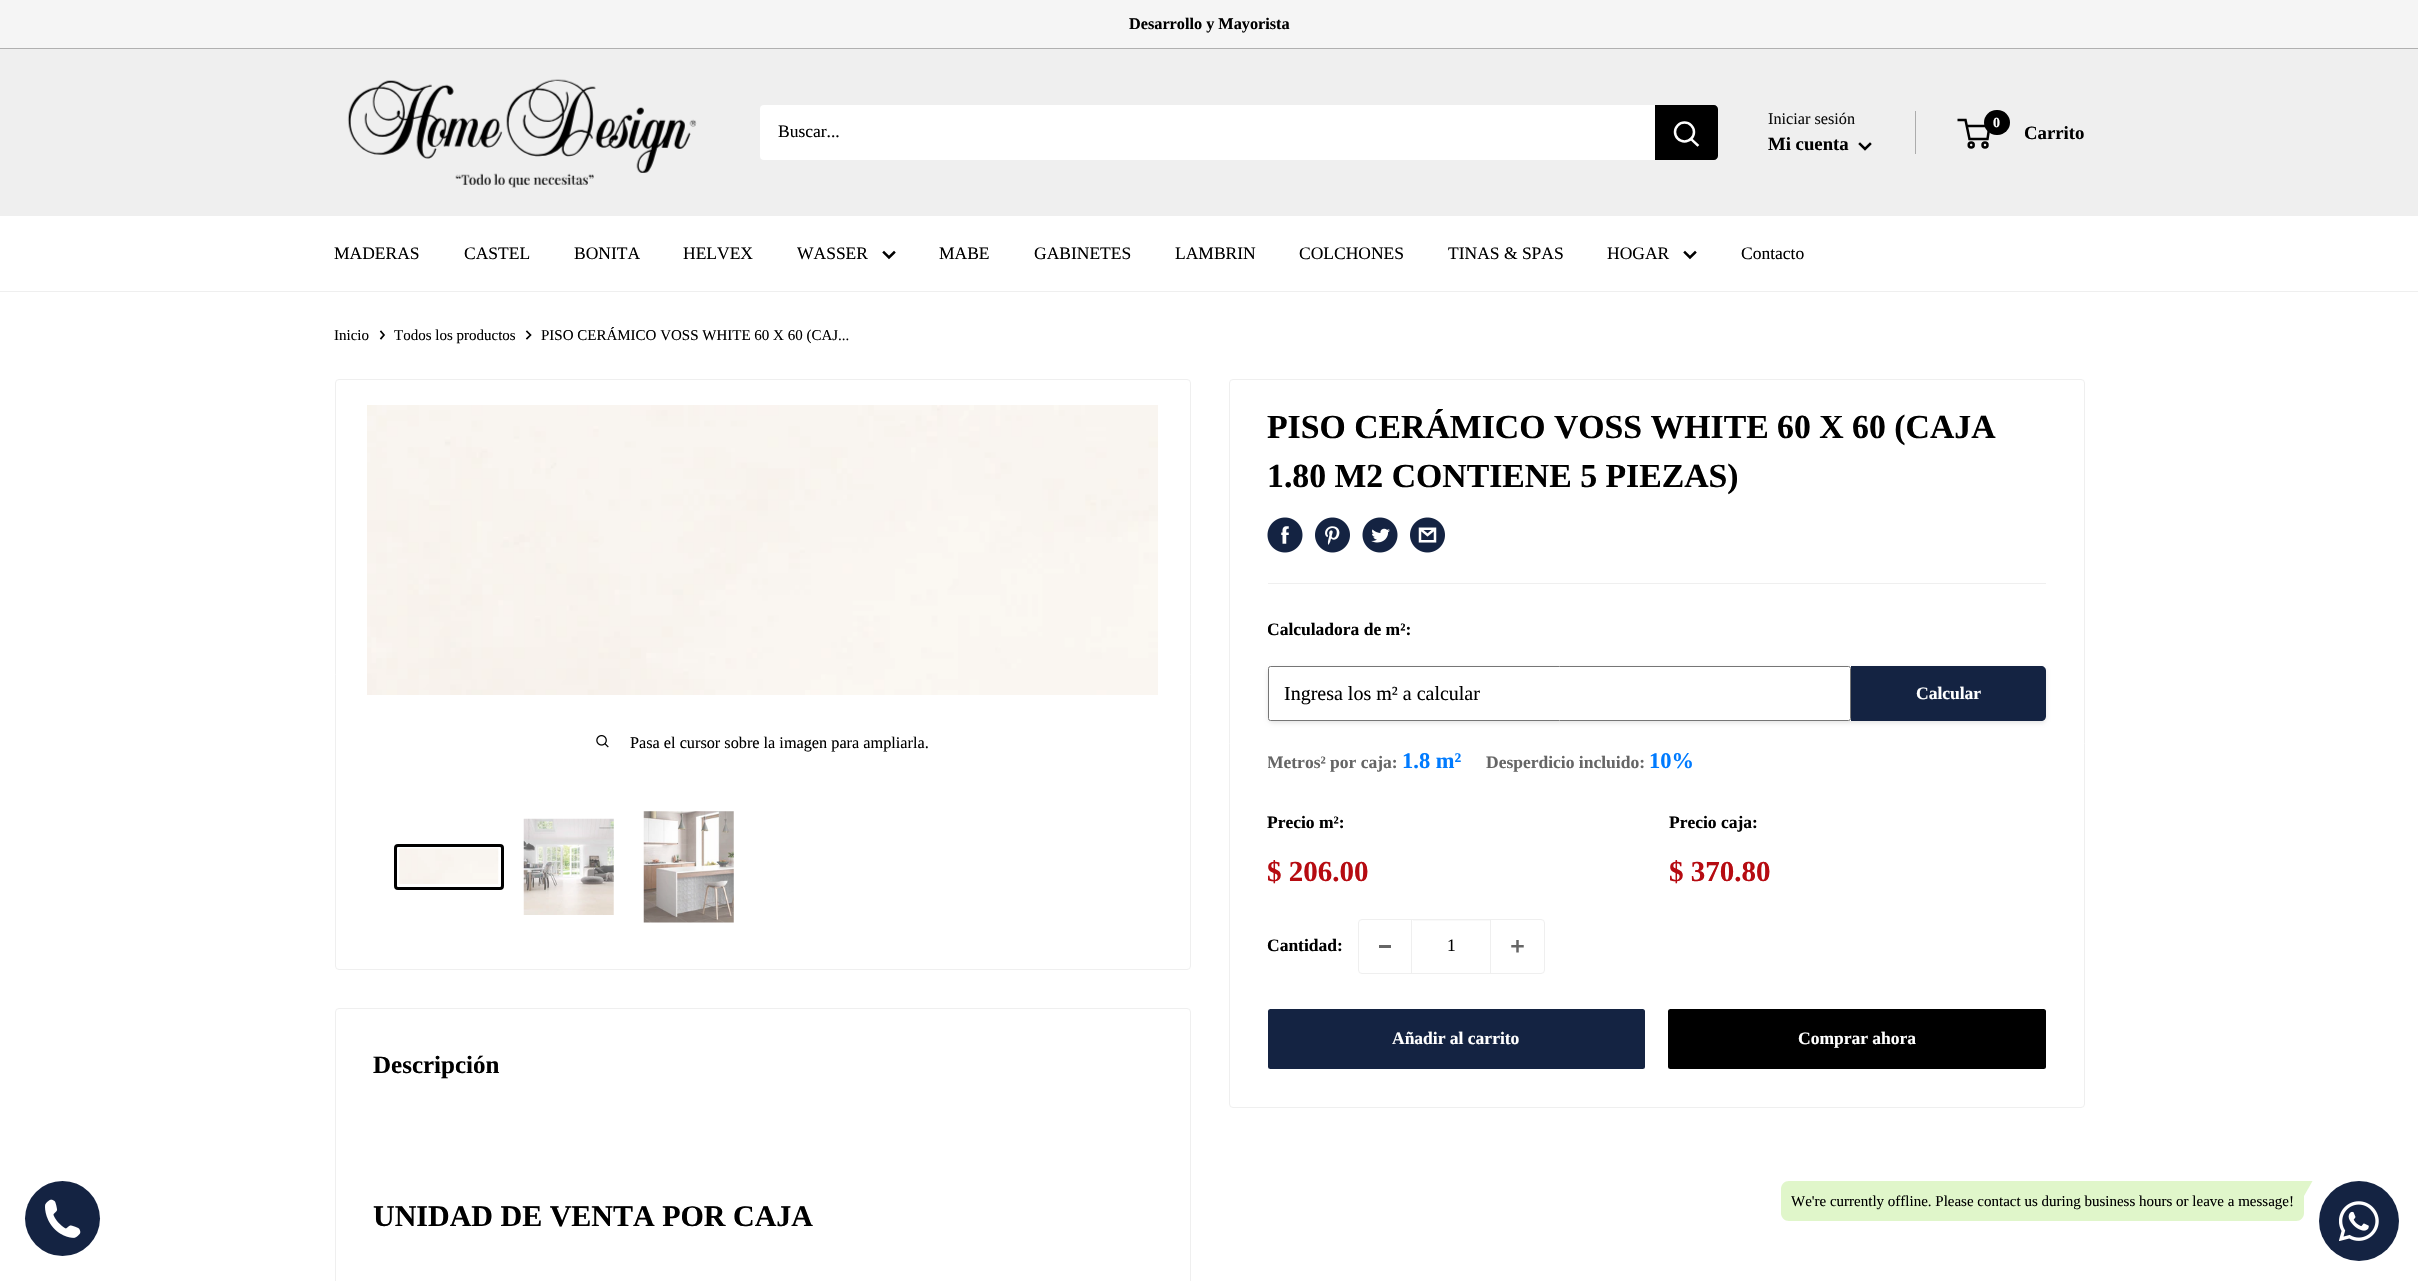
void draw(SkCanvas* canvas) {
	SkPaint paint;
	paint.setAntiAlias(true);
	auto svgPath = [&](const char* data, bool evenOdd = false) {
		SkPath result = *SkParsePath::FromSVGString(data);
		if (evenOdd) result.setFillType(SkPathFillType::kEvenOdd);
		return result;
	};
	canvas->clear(0xffffffff);
	paint.setColor(0xfff5f5f5);
	canvas->drawRect(SkRect::MakeXYWH(0, 0, 2418, 48), paint);
	paint.setColor(0xffb0b0b0);
	canvas->drawRect(SkRect::MakeXYWH(0, 48, 2418, 1), paint);
	SkFont f1(fontMgr->matchFamilyStyle("Liberation Serif", SkFontStyle::Bold()), 16.25);
	f1.setSubpixel(true);
	paint.setColor(0xff000000);
	canvas->drawString("Desarrollo y Mayorista", 1129, 29, f1, paint);
	paint.setColor(0xffefefef);
	canvas->drawRect(SkRect::MakeXYWH(0, 49, 2418, 167), paint);
	canvas->drawImageRect(SkImages::DeferredFromEncodedData(SkData::MakeFromFileName("img1.png")), SkRect::MakeXYWH(347, 79, 350, 109), SkSamplingOptions());
	paint.setColor(0xffffffff);
	canvas->drawRoundRect(SkRect::MakeXYWH(760, 105, 958, 55), 4, 4, paint);
	SkFont f2(fontMgr->matchFamilyStyle("Liberation Serif", SkFontStyle::Normal()), 17.5);
	f2.setSubpixel(true);
	paint.setColor(0xff000000);
	canvas->drawString("Buscar...", 778, 137, f2, paint);
	canvas->drawPath(svgPath("M1655 105H1714C1716 105 1718 107 1718 109V156C1718 158 1716 160 1714 160H1655Z"), paint);
	paint.setStroke(true);
	paint.setStrokeWidth(2.5);
	paint.setStrokeCap(SkPaint::kSquare_Cap);
	paint.setColor(0xffffffff);
	canvas->drawPath(svgPath("M1697.5 145L1691 139"), paint);
	paint.setStrokeCap(SkPaint::kButt_Cap);
	canvas->drawCircle(1684.5, 132, 9.5, paint);
	SkFont f3(fontMgr->matchFamilyStyle("Liberation Serif", SkFontStyle::Normal()), 16.25);
	f3.setSubpixel(true);
	paint.setStroke(false);
	paint.setColor(0xff0e0e0e);
	canvas->drawString("Iniciar sesión", 1768, 124, f3, paint);
	paint.setColor(0xffacacac);
	canvas->drawRect(SkRect::MakeXYWH(1915, 111, 1, 43), paint);
	SkFont f4(fontMgr->matchFamilyStyle("Liberation Serif", SkFontStyle::Bold()), 18.75);
	f4.setSubpixel(true);
	paint.setColor(0xff000000);
	canvas->drawString("Mi cuenta", 1768, 150, f4, paint);
	paint.setStroke(true);
	paint.setStrokeCap(SkPaint::kSquare_Cap);
	canvas->drawPath(svgPath("M1870 144L1865 149L1860 144"), paint);
	paint.setStrokeCap(SkPaint::kButt_Cap);
	canvas->drawCircle(1971.2, 145, 2.5, paint);
	canvas->drawCircle(1985, 145, 2.5, paint);
	canvas->drawPath(svgPath("M1966.5 126H1989.5L1987.5 139H1969.5L1965.5 120H1957.5"), paint);
	paint.setStroke(false);
	canvas->drawRoundRect(SkRect::MakeXYWH(1984, 110, 26, 25), 12.5, 12.5, paint);
	SkFont f5(fontMgr->matchFamilyStyle("Liberation Serif", SkFontStyle::Bold()), 14);
	f5.setSubpixel(true);
	paint.setColor(0xffffffff);
	canvas->drawString("0", 1993, 127, f5, paint);
	paint.setColor(0xff000000);
	canvas->drawString("Carrito", 2024, 139, f4, paint);
	paint.setColor(0xffefefef);
	canvas->drawRect(SkRect::MakeXYWH(0, 291, 2418, 1), paint);
	paint.setColor(0xff000000);
	canvas->drawString("MADERAS", 334, 259, f2, paint);
	canvas->drawString("CASTEL", 464, 259, f2, paint);
	canvas->drawString("BONITA", 574, 259, f2, paint);
	canvas->drawString("HELVEX", 683, 259, f2, paint);
	canvas->drawString("WASSER", 797, 259, f2, paint);
	paint.setStroke(true);
	paint.setStrokeCap(SkPaint::kSquare_Cap);
	canvas->drawPath(svgPath("M894 252.5L889 257.5L884 252.5"), paint);
	paint.setStroke(false);
	canvas->drawString("MABE", 939, 259, f2, paint);
	canvas->drawString("GABINETES", 1034, 259, f2, paint);
	canvas->drawString("LAMBRIN", 1175, 259, f2, paint);
	canvas->drawString("COLCHONES", 1299, 259, f2, paint);
	canvas->drawString("TINAS & SPAS", 1448, 259, f2, paint);
	canvas->drawString("HOGAR", 1607, 259, f2, paint);
	paint.setStroke(true);
	canvas->drawPath(svgPath("M1695 252.5L1690 257.5L1685 252.5"), paint);
	paint.setStroke(false);
	canvas->drawString("Contacto", 1741, 259, f2, paint);
	paint.setColor(0xff142342);
	canvas->drawCircle(62.5, 1218.5, 37.5, paint);
	canvas->drawImageRect(SkImages::DeferredFromEncodedData(SkData::MakeFromFileName("img2.png")), SkRect::MakeXYWH(45, 1199, 36, 39), SkSamplingOptions());
	SkFont f6(fontMgr->matchFamilyStyle("Liberation Serif", SkFontStyle::Normal()), 15);
	f6.setSubpixel(true);
	paint.setColor(0xff000000);
	canvas->drawString("Inicio", 334, 340, f6, paint);
	paint.setStroke(true);
	paint.setStrokeWidth(1.7);
	canvas->drawPath(svgPath("M381 331.5L384 335L381 338.5"), paint);
	paint.setStroke(false);
	canvas->drawString("Todos los productos", 394, 340, f6, paint);
	paint.setStroke(true);
	canvas->drawPath(svgPath("M527 331.5L530.5 335L527 338.5"), paint);
	paint.setStroke(false);
	canvas->drawString("PISO CERÁMICO VOSS WHITE 60 X 60 (CAJ...", 541, 340, f6, paint);
	paint.setStroke(true);
	paint.setStrokeWidth(1);
	paint.setStrokeCap(SkPaint::kButt_Cap);
	paint.setColor(0xffefefef);
	canvas->drawRoundRect(SkRect::MakeXYWH(335.5, 379.5, 855, 590), 3.5, 3.5, paint);
	canvas->drawImageRect(SkImages::DeferredFromEncodedData(SkData::MakeFromFileName("img3.png")), SkRect::MakeXYWH(367, 405, 791, 290), SkSamplingOptions());
	canvas->drawImageRect(SkImages::DeferredFromEncodedData(SkData::MakeFromFileName("img4.png")), SkRect::MakeXYWH(596, 735, 13, 13), SkSamplingOptions());
	paint.setStroke(false);
	paint.setColor(0xff000000);
	canvas->drawString("Pasa el cursor sobre la imagen para ampliarla.", 630, 748, f3, paint);
	paint.setStroke(true);
	paint.setStrokeWidth(3);
	canvas->drawRoundRect(SkRect::MakeXYWH(395.5, 845.5, 107, 43), 2.5, 2.5, paint);
	canvas->drawImageRect(SkImages::DeferredFromEncodedData(SkData::MakeFromFileName("img5.png")), SkRect::MakeXYWH(399, 848, 100, 36), SkSamplingOptions());
	canvas->drawImageRect(SkImages::DeferredFromEncodedData(SkData::MakeFromFileName("img6.png")), SkRect::MakeXYWH(523, 818, 91, 97), SkSamplingOptions());
	canvas->drawImageRect(SkImages::DeferredFromEncodedData(SkData::MakeFromFileName("img7.png")), SkRect::MakeXYWH(643, 811, 91, 112), SkSamplingOptions());
	paint.setStrokeWidth(1);
	paint.setColor(0xffefefef);
	canvas->drawRoundRect(SkRect::MakeXYWH(1229.5, 379.5, 855, 728), 3.5, 3.5, paint);
	SkFont f7(fontMgr->matchFamilyStyle("Liberation Serif", SkFontStyle::Bold()), 33.75);
	f7.setSubpixel(true);
	paint.setStroke(false);
	paint.setColor(0xff000000);
	canvas->drawString("PISO CERÁMICO VOSS WHITE 60 X 60 (CAJA", 1267, 438, f7, paint);
	canvas->drawString("1.80 M2 CONTIENE 5 PIEZAS)", 1267, 487, f7, paint);
	canvas->drawImageRect(SkImages::DeferredFromEncodedData(SkData::MakeFromFileName("img8.png")), SkRect::MakeXYWH(1267, 517, 36, 36), SkSamplingOptions());
	canvas->drawImageRect(SkImages::DeferredFromEncodedData(SkData::MakeFromFileName("img9.png")), SkRect::MakeXYWH(1315, 517, 35, 36), SkSamplingOptions());
	canvas->drawImageRect(SkImages::DeferredFromEncodedData(SkData::MakeFromFileName("img10.png")), SkRect::MakeXYWH(1362, 517, 36, 36), SkSamplingOptions());
	canvas->drawImageRect(SkImages::DeferredFromEncodedData(SkData::MakeFromFileName("img11.png")), SkRect::MakeXYWH(1410, 517, 35, 36), SkSamplingOptions());
	paint.setColor(0xffefefef);
	canvas->drawRect(SkRect::MakeXYWH(1268, 583, 778, 1), paint);
	canvas->save();
	canvas->clipRect(SkRect::MakeXYWH(1268, 614, 778, 169));
	SkFont f8(fontMgr->matchFamilyStyle("Liberation Serif", SkFontStyle::Bold()), 17.5);
	f8.setSubpixel(true);
	paint.setColor(0xff000000);
	canvas->drawString("Calculadora de m²:", 1267, 635, f8, paint);
	canvas->restore();
	canvas->save();
	canvas->clipPath(svgPath("M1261 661H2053V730H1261ZM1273 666H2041C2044 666 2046 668 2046 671V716C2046 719 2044 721 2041 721H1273C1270 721 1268 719 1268 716V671C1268 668 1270 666 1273 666Z", true), true);
	paint.setColor(0x1a000000);
	paint.setMaskFilter(SkMaskFilter::MakeBlur(kNormal_SkBlurStyle, 2));
	canvas->drawRoundRect(SkRect::MakeXYWH(1268, 668, 778, 55), 5, 5, paint);
	paint.setMaskFilter(nullptr);
	canvas->restore();
	paint.setColor(0xffffffff);
	canvas->drawRoundRect(SkRect::MakeXYWH(1268.5, 666.5, 582, 54), 2, 2, paint);
	paint.setStroke(true);
	paint.setColor(0xff767676);
	canvas->drawRoundRect(SkRect::MakeXYWH(1268.5, 666.5, 582, 54), 2, 2, paint);
	SkFont f9(fontMgr->matchFamilyStyle("Liberation Serif", SkFontStyle::Normal()), 20);
	f9.setSubpixel(true);
	paint.setStroke(false);
	paint.setColor(0xff000000);
	canvas->drawString("Ingresa los m² a calcular", 1284, 700, f9, paint);
	paint.setColor(0xff142342);
	canvas->drawPath(svgPath("M1851 666H2041C2044 666 2046 668 2046 671V716C2046 719 2044 721 2041 721H1851Z"), paint);
	paint.setColor(0xffffffff);
	canvas->drawString("Calcular", 1916, 699, f8, paint);
	canvas->save();
	canvas->clipRect(SkRect::MakeXYWH(1268, 740, 778, 43));
	paint.setColor(0xff666666);
	canvas->drawString("Metros² por caja:", 1267, 768, f8, paint);
	canvas->restore();
	SkFont f10(fontMgr->matchFamilyStyle("Liberation Serif", SkFontStyle::Bold()), 22.5);
	f10.setSubpixel(true);
	paint.setColor(0xff007bff);
	canvas->drawString("1.8 m²", 1402, 768, f10, paint);
	paint.setColor(0xff666666);
	canvas->drawString("Desperdicio incluido:", 1486, 768, f8, paint);
	paint.setColor(0xff007bff);
	canvas->drawString("10%", 1649, 768, f10, paint);
	paint.setColor(0xff000000);
	canvas->drawString("Precio m²:", 1267, 828, f8, paint);
	SkFont f11(fontMgr->matchFamilyStyle("Liberation Serif", SkFontStyle::Bold()), 29);
	f11.setSubpixel(true);
	paint.setColor(0xffb60b11);
	canvas->drawString("$ 206.00", 1267, 881, f11, paint);
	paint.setColor(0xff000000);
	canvas->drawString("Precio caja:", 1669, 828, f8, paint);
	paint.setColor(0xffb60b11);
	canvas->drawString("$ 370.80", 1669, 881, f11, paint);
	paint.setColor(0xff000000);
	canvas->drawString("Cantidad:", 1267, 951, f8, paint);
	paint.setStroke(true);
	paint.setColor(0xffefefef);
	canvas->drawRoundRect(SkRect::MakeXYWH(1358.5, 919.5, 186, 54), 3.5, 3.5, paint);
	paint.setStroke(false);
	paint.setColor(0xff666666);
	canvas->drawRect(SkRect::MakeXYWH(1379, 945, 12, 3), paint);
	paint.setColor(0xfff9f9f9);
	canvas->drawRect(SkRect::MakeXYWH(1413, 920, 77, 1), paint);
	paint.setColor(0xffefefef);
	canvas->drawRect(SkRect::MakeXYWH(1490, 920, 1, 53), paint);
	canvas->drawRect(SkRect::MakeXYWH(1411, 920, 1, 53), paint);
	paint.setColor(0xff000000);
	canvas->drawString("1", 1447, 951, f2, paint);
	canvas->drawImageRect(SkImages::DeferredFromEncodedData(SkData::MakeFromFileName("img12.png")), SkRect::MakeXYWH(1511, 940, 13, 13), SkSamplingOptions());
	paint.setColor(0xff142342);
	canvas->drawRoundRect(SkRect::MakeXYWH(1268, 1009, 377, 60), 2.5, 2.5, paint);
	paint.setColor(0xffffffff);
	canvas->drawString("Añadir al carrito", 1392, 1044, f8, paint);
	paint.setColor(0xff000000);
	canvas->drawRoundRect(SkRect::MakeXYWH(1668, 1009, 378, 60), 2.5, 2.5, paint);
	paint.setColor(0xffffffff);
	canvas->drawString("Comprar ahora", 1798, 1044, f8, paint);
	paint.setStroke(true);
	paint.setColor(0xffefefef);
	canvas->drawRoundRect(SkRect::MakeXYWH(335.5, 1008.5, 855, 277), 3.5, 3.5, paint);
	SkFont f12(fontMgr->matchFamilyStyle("Liberation Serif", SkFontStyle::Bold()), 25);
	f12.setSubpixel(true);
	paint.setStroke(false);
	paint.setColor(0xff000000);
	canvas->drawString("Descripción", 373, 1073, f12, paint);
	SkFont f13(fontMgr->matchFamilyStyle("Liberation Serif", SkFontStyle::Bold()), 30);
	f13.setSubpixel(true);
	canvas->drawString("UNIDAD DE VENTA POR CAJA", 373, 1226, f13, paint);
	paint.setColor(0xffe0f6ca);
	canvas->drawPath(svgPath("M1789 1181H2304V1213C2304 1217.5 2300.5 1221 2296 1221H1789C1784.5 1221 1781 1217.5 1781 1213V1189C1781 1184.5 1784.5 1181 1789 1181Z"), paint);
	canvas->drawPath(svgPath("M2304 1181H2312.5L2304 1196Z"), paint);
	paint.setColor(0xff000000);
	canvas->drawString("We're currently offline. Please contact us during business hours or leave a message!", 1791, 1206, f6, paint);
	paint.setColor(0xff142342);
	canvas->drawCircle(2359, 1221, 40, paint);
	canvas->drawImageRect(SkImages::DeferredFromEncodedData(SkData::MakeFromFileName("img13.png")), SkRect::MakeXYWH(2339, 1201, 40, 40), SkSamplingOptions());
}
